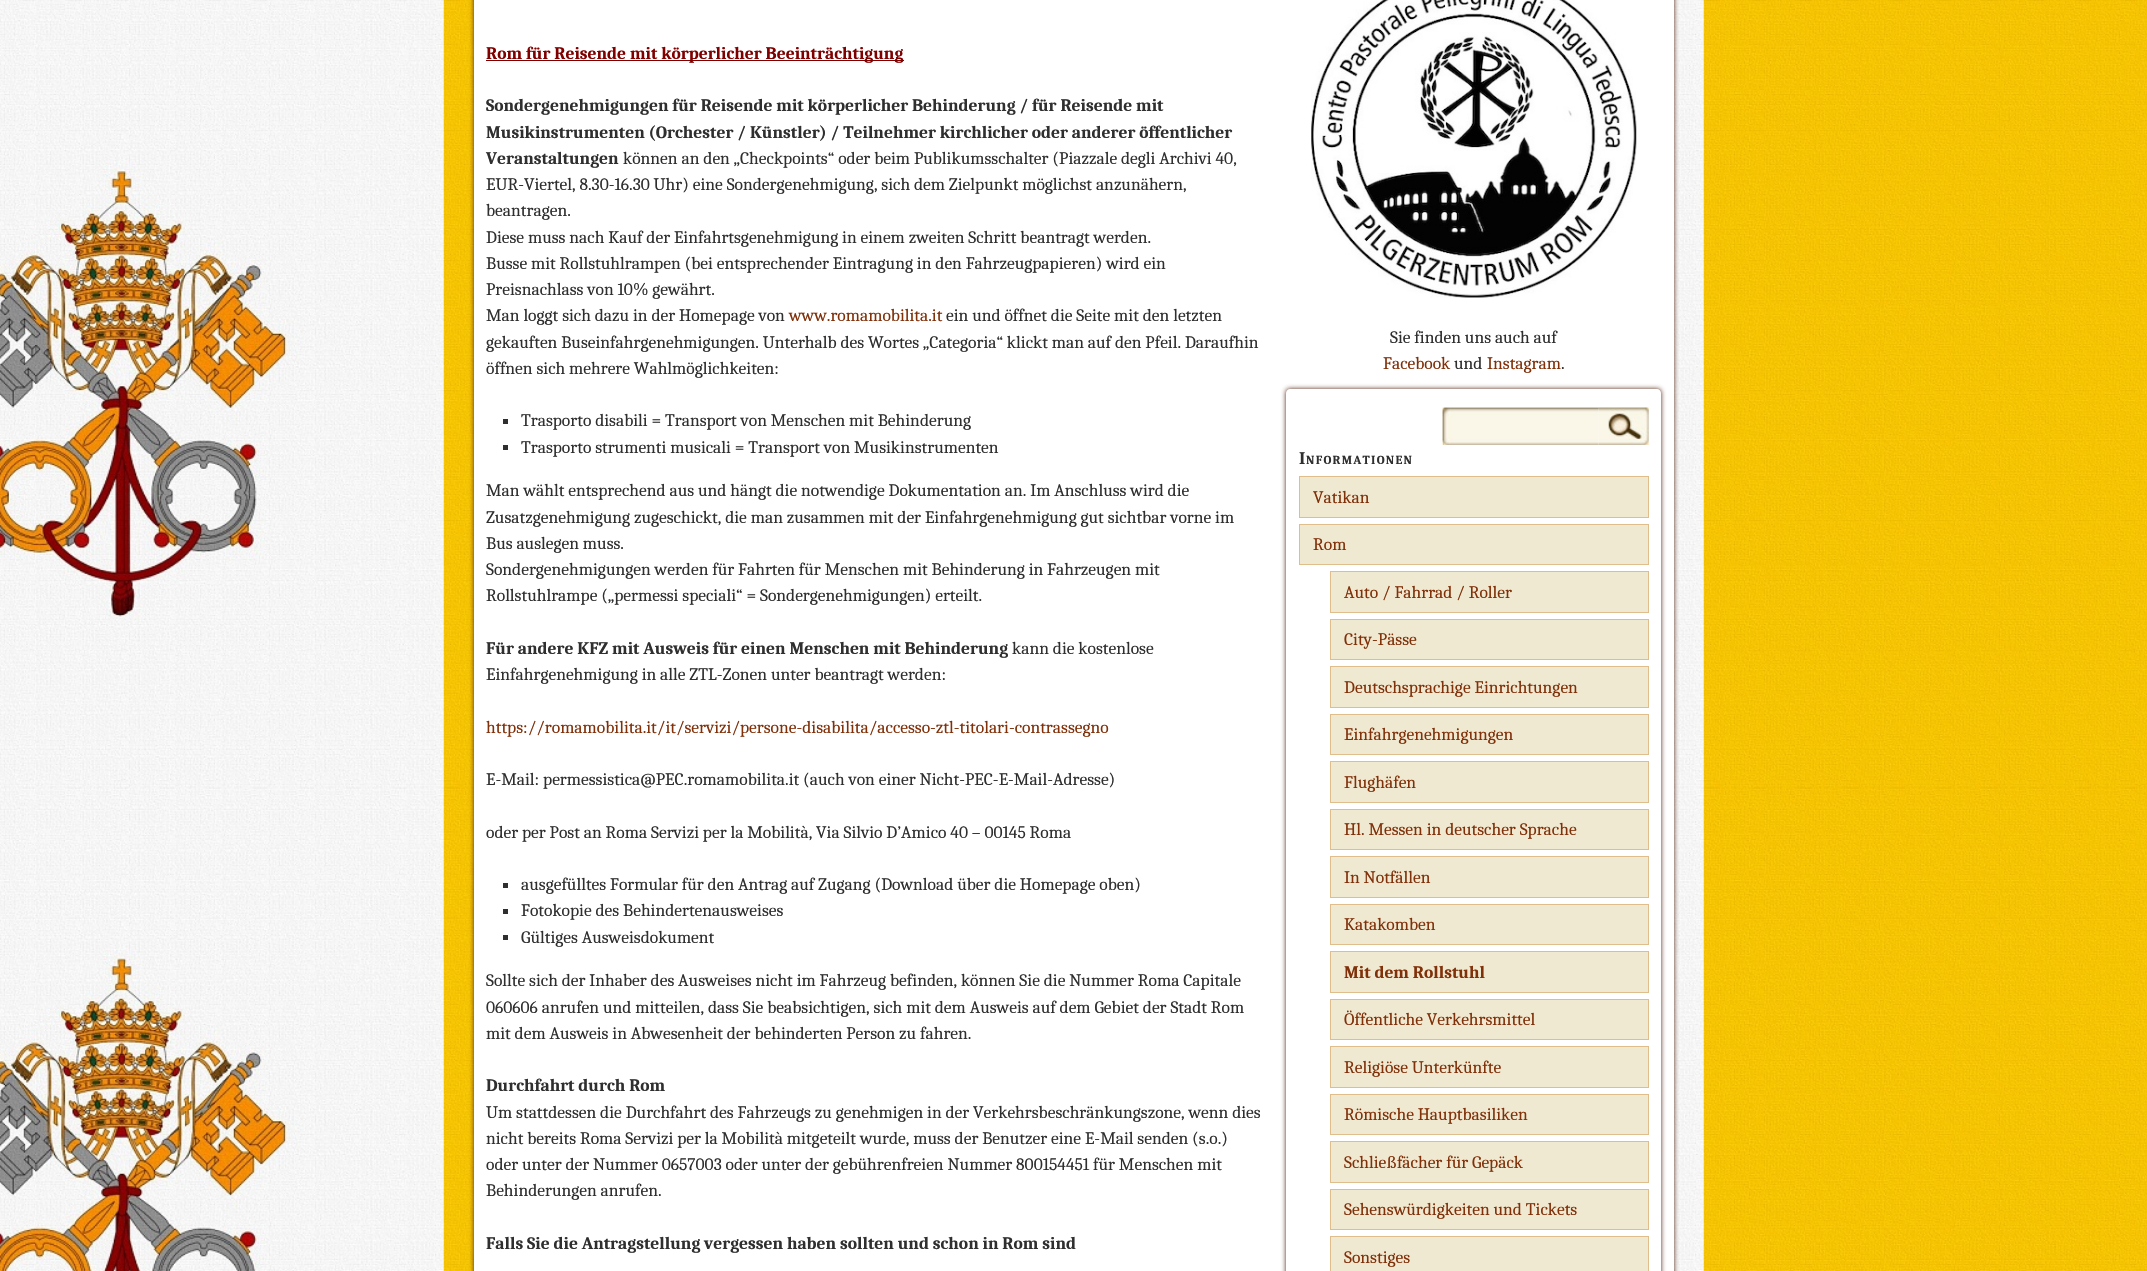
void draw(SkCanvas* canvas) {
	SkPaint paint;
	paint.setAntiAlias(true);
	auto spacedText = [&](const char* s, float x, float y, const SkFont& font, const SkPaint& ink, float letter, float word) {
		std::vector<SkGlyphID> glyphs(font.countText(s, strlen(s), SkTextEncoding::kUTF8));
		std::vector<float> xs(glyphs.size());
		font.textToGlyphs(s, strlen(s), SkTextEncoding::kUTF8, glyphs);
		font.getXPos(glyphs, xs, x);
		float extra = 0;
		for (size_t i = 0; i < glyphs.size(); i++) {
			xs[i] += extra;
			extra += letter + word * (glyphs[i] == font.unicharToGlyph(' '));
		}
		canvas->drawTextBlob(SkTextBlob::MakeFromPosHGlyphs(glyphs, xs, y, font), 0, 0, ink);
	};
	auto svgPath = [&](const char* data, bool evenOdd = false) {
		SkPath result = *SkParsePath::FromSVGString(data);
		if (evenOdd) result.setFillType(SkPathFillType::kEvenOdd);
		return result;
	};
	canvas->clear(0xffffffff);
	canvas->drawImageRect(SkImages::DeferredFromEncodedData(SkData::MakeFromFileName("img1.png")), SkRect::MakeXYWH(0, 0, 2147, 1271), SkSamplingOptions());
	paint.setColor(0xff501f0e);
	paint.setMaskFilter(SkMaskFilter::MakeBlur(kNormal_SkBlurStyle, 2.5));
	canvas->drawRoundRect(SkRect::MakeXYWH(474, -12, 1200, 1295), 4, 4, paint);
	paint.setMaskFilter(nullptr);
	paint.setColor(0xffffffff);
	canvas->drawRect(SkRect::MakeXYWH(474, 0, 1200, 1271), paint);
	paint.setColor(0xff800000);
	canvas->drawRect(SkRect::MakeXYWH(486, 60, 418, 1), paint);
	SkFont f1(fontMgr->matchFamilyStyle("Caladea", SkFontStyle::Bold()), 17.5);
	f1.setSubpixel(true);
	canvas->drawString("Rom für Reisende mit körperlicher Beeinträchtigung", 486, 59, f1, paint);
	paint.setColor(0xff2f2f2f);
	canvas->drawString("Sondergenehmigungen für Reisende mit körperlicher Behinderung / für Reisende mit", 486, 111, f1, paint);
	canvas->drawString("Musikinstrumenten (Orchester / Künstler) / Teilnehmer kirchlicher oder anderer öffentlicher", 486, 138, f1, paint);
	canvas->drawString("Veranstaltungen", 486, 164, f1, paint);
	SkFont f2(fontMgr->matchFamilyStyle("Caladea", SkFontStyle::Normal()), 17.5);
	f2.setSubpixel(true);
	canvas->drawString("können an den „Checkpoints“ oder beim Publikumsschalter (Piazzale degli Archivi 40,", 623, 164, f2, paint);
	canvas->drawString("EUR-Viertel, 8.30-16.30 Uhr) eine Sondergenehmigung, sich dem Zielpunkt möglichst anzunähern,", 486, 190, f2, paint);
	canvas->drawString("beantragen.", 486, 216, f2, paint);
	canvas->drawString("Diese muss nach Kauf der Einfahrtsgenehmigung in einem zweiten Schritt beantragt werden.", 486, 243, f2, paint);
	canvas->drawString("Busse mit Rollstuhlrampen (bei entsprechender Eintragung in den Fahrzeugpapieren) wird ein", 486, 269, f2, paint);
	canvas->drawString("Preisnachlass von 10% gewährt.", 486, 295, f2, paint);
	canvas->drawString("Man loggt sich dazu in der Homepage von", 486, 321, f2, paint);
	paint.setColor(0xff81310a);
	canvas->drawString("www.romamobilita.it", 789, 321, f2, paint);
	paint.setColor(0xff2f2f2f);
	canvas->drawString("ein und öffnet die Seite mit den letzten", 946, 321, f2, paint);
	canvas->drawString("gekauften Buseinfahrgenehmigungen. Unterhalb des Wortes „Categoria“ klickt man auf den Pfeil. Daraufhin", 486, 348, f2, paint);
	canvas->drawString("öffnen sich mehrere Wahlmöglichkeiten:", 486, 374, f2, paint);
	canvas->drawRect(SkRect::MakeXYWH(503, 419, 5, 5), paint);
	canvas->drawString("Trasporto disabili = Transport von Menschen mit Behinderung", 521, 426, f2, paint);
	canvas->drawRect(SkRect::MakeXYWH(503, 445, 5, 5), paint);
	canvas->drawString("Trasporto strumenti musicali = Transport von Musikinstrumenten", 521, 453, f2, paint);
	canvas->drawString("Man wählt entsprechend aus und hängt die notwendige Dokumentation an. Im Anschluss wird die", 486, 496, f2, paint);
	canvas->drawString("Zusatzgenehmigung zugeschickt, die man zusammen mit der Einfahrgenehmigung gut sichtbar vorne im", 486, 523, f2, paint);
	canvas->drawString("Bus auslegen muss.", 486, 549, f2, paint);
	canvas->drawString("Sondergenehmigungen werden für Fahrten für Menschen mit Behinderung in Fahrzeugen mit", 486, 575, f2, paint);
	canvas->drawString("Rollstuhlrampe („permessi speciali“ = Sondergenehmigungen) erteilt.", 486, 601, f2, paint);
	canvas->drawString("Für andere KFZ mit Ausweis für einen Menschen mit Behinderung", 486, 654, f1, paint);
	canvas->drawString("kann die kostenlose", 1012, 654, f2, paint);
	canvas->drawString("Einfahrgenehmigung in alle ZTL-Zonen unter beantragt werden:", 486, 680, f2, paint);
	paint.setColor(0xff81310a);
	canvas->drawString("https://romamobilita.it/it/servizi/persone-disabilita/accesso-ztl-titolari-contrassegno", 486, 733, f2, paint);
	paint.setColor(0xff2f2f2f);
	canvas->drawString("E-Mail: permessistica@PEC.romamobilita.it (auch von einer Nicht-PEC-E-Mail-Adresse)", 486, 785, f2, paint);
	canvas->drawString("oder per Post an Roma Servizi per la Mobilità, Via Silvio D’Amico 40 – 00145 Roma", 486, 838, f2, paint);
	canvas->drawRect(SkRect::MakeXYWH(503, 883, 5, 5), paint);
	canvas->drawString("ausgefülltes Formular für den Antrag auf Zugang (Download über die Homepage oben)", 521, 890, f2, paint);
	canvas->drawRect(SkRect::MakeXYWH(503, 909, 5, 5), paint);
	canvas->drawString("Fotokopie des Behindertenausweises", 521, 916, f2, paint);
	canvas->drawRect(SkRect::MakeXYWH(503, 935, 5, 5), paint);
	canvas->drawString("Gültiges Ausweisdokument", 521, 943, f2, paint);
	canvas->drawString("Sollte sich der Inhaber des Ausweises nicht im Fahrzeug befinden, können Sie die Nummer Roma Capitale", 486, 986, f2, paint);
	canvas->drawString("060606 anrufen und mitteilen, dass Sie beabsichtigen, sich mit dem Ausweis auf dem Gebiet der Stadt Rom", 486, 1013, f2, paint);
	canvas->drawString("mit dem Ausweis in Abwesenheit der behinderten Person zu fahren.", 486, 1039, f2, paint);
	canvas->drawString("Durchfahrt durch Rom", 486, 1091, f1, paint);
	canvas->drawString("Um stattdessen die Durchfahrt des Fahrzeugs zu genehmigen in der Verkehrsbeschränkungszone, wenn dies", 486, 1118, f2, paint);
	canvas->drawString("nicht bereits Roma Servizi per la Mobilità mitgeteilt wurde, muss der Benutzer eine E-Mail senden (s.o.)", 486, 1144, f2, paint);
	canvas->drawString("oder unter der Nummer 0657003 oder unter der gebührenfreien Nummer 800154451 für Menschen mit", 486, 1170, f2, paint);
	canvas->drawString("Behinderungen anrufen.", 486, 1196, f2, paint);
	canvas->drawString("Falls Sie die Antragstellung vergessen haben sollten und schon in Rom sind", 486, 1249, f1, paint);
	canvas->drawImageRect(SkImages::DeferredFromEncodedData(SkData::MakeFromFileName("img2.png")), SkRect::MakeXYWH(1311, 0, 326, 298), SkSamplingOptions());
	canvas->drawString("Sie finden uns auch auf", 1390, 343, f2, paint);
	paint.setColor(0xff81310a);
	canvas->drawString("Facebook", 1383, 369, f2, paint);
	paint.setColor(0xff2f2f2f);
	canvas->drawString("und", 1454, 369, f2, paint);
	paint.setColor(0xff81310a);
	canvas->drawString("Instagram", 1487, 369, f2, paint);
	paint.setColor(0xff2f2f2f);
	canvas->drawString(".", 1561, 369, f2, paint);
	canvas->save();
	canvas->clipPath(svgPath("M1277 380H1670V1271H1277ZM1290 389H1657C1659 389 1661 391 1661 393V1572C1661 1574 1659 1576 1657 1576H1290C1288 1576 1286 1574 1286 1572V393C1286 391 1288 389 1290 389Z", true), true);
	paint.setColor(0xff501f0e);
	paint.setMaskFilter(SkMaskFilter::MakeBlur(kNormal_SkBlurStyle, 2.5));
	canvas->drawRoundRect(SkRect::MakeXYWH(1286, 389, 375, 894), 4, 4, paint);
	paint.setMaskFilter(nullptr);
	canvas->restore();
	canvas->drawImageRect(SkImages::DeferredFromEncodedData(SkData::MakeFromFileName("img3.png")), SkRect::MakeXYWH(1442, 407, 157, 38), SkSamplingOptions());
	canvas->save();
	canvas->clipRect(SkRect::MakeXYWH(1443, 408, 156, 37));
	paint.setColor(0x1a000000);
	canvas->drawPath(svgPath("M1319 284H1722V569H1319ZM1444 409H1600V446H1444Z", true), paint);
	canvas->restore();
	canvas->drawImageRect(SkImages::DeferredFromEncodedData(SkData::MakeFromFileName("img4.png")), SkRect::MakeXYWH(1598, 407, 51, 38), SkSamplingOptions());
	paint.setColor(0xff2f2f2f);
	spacedText("I", 1299, 464, f1, paint, 1.25, 0);
	SkFont f3(fontMgr->matchFamilyStyle("Caladea", SkFontStyle::Bold()), 12.25);
	f3.setSubpixel(true);
	spacedText("NFORMATIONEN", 1306, 464, f3, paint, 1.25, 0);
	paint.setColor(0xffefe9d1);
	canvas->drawRect(SkRect::MakeXYWH(1299.5, 476.5, 349, 41), paint);
	paint.setStroke(true);
	paint.setStrokeWidth(1);
	paint.setColor(0xffdfbe8b);
	canvas->drawRect(SkRect::MakeXYWH(1299.5, 476.5, 349, 41), paint);
	paint.setStroke(false);
	paint.setColor(0xff81310a);
	canvas->drawString("Vatikan", 1313, 503, f2, paint);
	paint.setColor(0xffefe9d1);
	canvas->drawRect(SkRect::MakeXYWH(1299.5, 524.5, 349, 40), paint);
	paint.setStroke(true);
	paint.setColor(0xffdfbe8b);
	canvas->drawRect(SkRect::MakeXYWH(1299.5, 524.5, 349, 40), paint);
	paint.setStroke(false);
	paint.setColor(0xff81310a);
	canvas->drawString("Rom", 1313, 550, f2, paint);
	paint.setColor(0xffefe9d1);
	canvas->drawRect(SkRect::MakeXYWH(1330.5, 571.5, 318, 41), paint);
	paint.setStroke(true);
	paint.setColor(0xffdfbe8b);
	canvas->drawRect(SkRect::MakeXYWH(1330.5, 571.5, 318, 41), paint);
	paint.setStroke(false);
	paint.setColor(0xff81310a);
	canvas->drawString("Auto / Fahrrad / Roller", 1344, 598, f2, paint);
	paint.setColor(0xffefe9d1);
	canvas->drawRect(SkRect::MakeXYWH(1330.5, 619.5, 318, 40), paint);
	paint.setStroke(true);
	paint.setColor(0xffdfbe8b);
	canvas->drawRect(SkRect::MakeXYWH(1330.5, 619.5, 318, 40), paint);
	paint.setStroke(false);
	paint.setColor(0xff81310a);
	canvas->drawString("City-Pässe", 1344, 645, f2, paint);
	paint.setColor(0xffefe9d1);
	canvas->drawRect(SkRect::MakeXYWH(1330.5, 666.5, 318, 41), paint);
	paint.setStroke(true);
	paint.setColor(0xffdfbe8b);
	canvas->drawRect(SkRect::MakeXYWH(1330.5, 666.5, 318, 41), paint);
	paint.setStroke(false);
	paint.setColor(0xff81310a);
	canvas->drawString("Deutschsprachige Einrichtungen", 1344, 693, f2, paint);
	paint.setColor(0xffefe9d1);
	canvas->drawRect(SkRect::MakeXYWH(1330.5, 714.5, 318, 40), paint);
	paint.setStroke(true);
	paint.setColor(0xffdfbe8b);
	canvas->drawRect(SkRect::MakeXYWH(1330.5, 714.5, 318, 40), paint);
	paint.setStroke(false);
	paint.setColor(0xff81310a);
	canvas->drawString("Einfahrgenehmigungen", 1344, 740, f2, paint);
	paint.setColor(0xffefe9d1);
	canvas->drawRect(SkRect::MakeXYWH(1330.5, 761.5, 318, 41), paint);
	paint.setStroke(true);
	paint.setColor(0xffdfbe8b);
	canvas->drawRect(SkRect::MakeXYWH(1330.5, 761.5, 318, 41), paint);
	paint.setStroke(false);
	paint.setColor(0xff81310a);
	canvas->drawString("Flughäfen", 1344, 788, f2, paint);
	paint.setColor(0xffefe9d1);
	canvas->drawRect(SkRect::MakeXYWH(1330.5, 809.5, 318, 40), paint);
	paint.setStroke(true);
	paint.setColor(0xffdfbe8b);
	canvas->drawRect(SkRect::MakeXYWH(1330.5, 809.5, 318, 40), paint);
	paint.setStroke(false);
	paint.setColor(0xff81310a);
	canvas->drawString("Hl. Messen in deutscher Sprache", 1344, 835, f2, paint);
	paint.setColor(0xffefe9d1);
	canvas->drawRect(SkRect::MakeXYWH(1330.5, 856.5, 318, 41), paint);
	paint.setStroke(true);
	paint.setColor(0xffdfbe8b);
	canvas->drawRect(SkRect::MakeXYWH(1330.5, 856.5, 318, 41), paint);
	paint.setStroke(false);
	paint.setColor(0xff81310a);
	canvas->drawString("In Notfällen", 1344, 883, f2, paint);
	paint.setColor(0xffefe9d1);
	canvas->drawRect(SkRect::MakeXYWH(1330.5, 904.5, 318, 40), paint);
	paint.setStroke(true);
	paint.setColor(0xffdfbe8b);
	canvas->drawRect(SkRect::MakeXYWH(1330.5, 904.5, 318, 40), paint);
	paint.setStroke(false);
	paint.setColor(0xff81310a);
	canvas->drawString("Katakomben", 1344, 930, f2, paint);
	paint.setColor(0xffefe9d1);
	canvas->drawRect(SkRect::MakeXYWH(1330.5, 951.5, 318, 41), paint);
	paint.setStroke(true);
	paint.setColor(0xffdfbe8b);
	canvas->drawRect(SkRect::MakeXYWH(1330.5, 951.5, 318, 41), paint);
	paint.setStroke(false);
	paint.setColor(0xff81310a);
	canvas->drawString("Mit dem Rollstuhl", 1344, 978, f1, paint);
	paint.setColor(0xffefe9d1);
	canvas->drawRect(SkRect::MakeXYWH(1330.5, 999.5, 318, 40), paint);
	paint.setStroke(true);
	paint.setColor(0xffdfbe8b);
	canvas->drawRect(SkRect::MakeXYWH(1330.5, 999.5, 318, 40), paint);
	paint.setStroke(false);
	paint.setColor(0xff81310a);
	canvas->drawString("Öffentliche Verkehrsmittel", 1344, 1025, f2, paint);
	paint.setColor(0xffefe9d1);
	canvas->drawRect(SkRect::MakeXYWH(1330.5, 1046.5, 318, 41), paint);
	paint.setStroke(true);
	paint.setColor(0xffdfbe8b);
	canvas->drawRect(SkRect::MakeXYWH(1330.5, 1046.5, 318, 41), paint);
	paint.setStroke(false);
	paint.setColor(0xff81310a);
	canvas->drawString("Religiöse Unterkünfte", 1344, 1073, f2, paint);
	paint.setColor(0xffefe9d1);
	canvas->drawRect(SkRect::MakeXYWH(1330.5, 1094.5, 318, 40), paint);
	paint.setStroke(true);
	paint.setColor(0xffdfbe8b);
	canvas->drawRect(SkRect::MakeXYWH(1330.5, 1094.5, 318, 40), paint);
	paint.setStroke(false);
	paint.setColor(0xff81310a);
	canvas->drawString("Römische Hauptbasiliken", 1344, 1120, f2, paint);
	paint.setColor(0xffefe9d1);
	canvas->drawRect(SkRect::MakeXYWH(1330.5, 1141.5, 318, 41), paint);
	paint.setStroke(true);
	paint.setColor(0xffdfbe8b);
	canvas->drawRect(SkRect::MakeXYWH(1330.5, 1141.5, 318, 41), paint);
	paint.setStroke(false);
	paint.setColor(0xff81310a);
	canvas->drawString("Schließfächer für Gepäck", 1344, 1168, f2, paint);
	paint.setColor(0xffefe9d1);
	canvas->drawRect(SkRect::MakeXYWH(1330.5, 1189.5, 318, 40), paint);
	paint.setStroke(true);
	paint.setColor(0xffdfbe8b);
	canvas->drawRect(SkRect::MakeXYWH(1330.5, 1189.5, 318, 40), paint);
	paint.setStroke(false);
	paint.setColor(0xff81310a);
	canvas->drawString("Sehenswürdigkeiten und Tickets", 1344, 1215, f2, paint);
	paint.setColor(0xffefe9d1);
	canvas->drawRect(SkRect::MakeXYWH(1330.5, 1236.5, 318, 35), paint);
	paint.setStroke(true);
	paint.setColor(0xffdfbe8b);
	canvas->drawRect(SkRect::MakeXYWH(1330.5, 1236.5, 318, 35), paint);
	paint.setStroke(false);
	paint.setColor(0xff81310a);
	canvas->drawString("Sonstiges", 1344, 1263, f2, paint);
}
